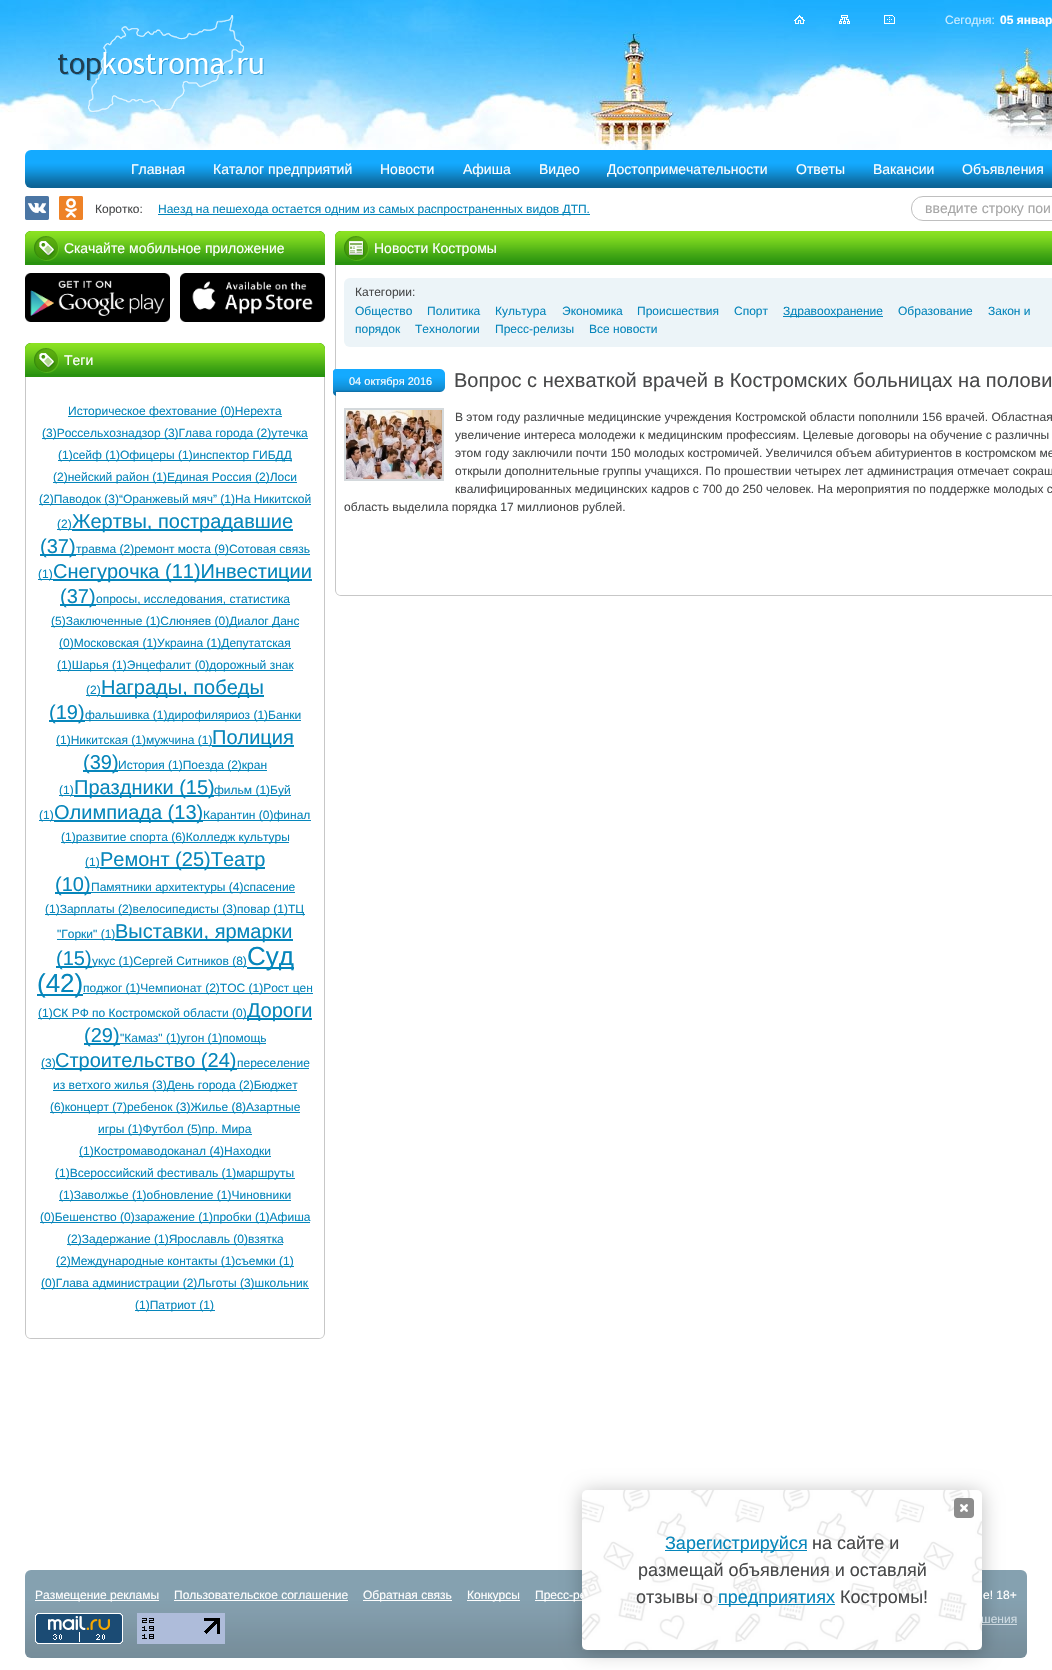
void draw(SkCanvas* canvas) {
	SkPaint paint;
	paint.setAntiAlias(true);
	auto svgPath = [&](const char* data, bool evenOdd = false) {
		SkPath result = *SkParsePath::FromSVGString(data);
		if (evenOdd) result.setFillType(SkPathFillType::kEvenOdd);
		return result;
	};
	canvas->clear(0xffffffff);
	canvas->drawImageRect(SkImages::DeferredFromEncodedData(SkData::MakeFromFileName("img1.png")), SkRect::MakeXYWH(0, 0, 1052, 164), SkSamplingOptions());
	canvas->drawImageRect(SkImages::DeferredFromEncodedData(SkData::MakeFromFileName("img2.png")), SkRect::MakeXYWH(58, 15, 206, 97), SkSamplingOptions());
	canvas->drawImageRect(SkImages::DeferredFromEncodedData(SkData::MakeFromFileName("img3.png")), SkRect::MakeXYWH(794, 15, 11, 9), SkSamplingOptions());
	canvas->drawImageRect(SkImages::DeferredFromEncodedData(SkData::MakeFromFileName("img4.png")), SkRect::MakeXYWH(839, 15, 11, 9), SkSamplingOptions());
	canvas->drawImageRect(SkImages::DeferredFromEncodedData(SkData::MakeFromFileName("img5.png")), SkRect::MakeXYWH(884, 15, 11, 9), SkSamplingOptions());
	SkFont f1(fontMgr->matchFamilyStyle("Liberation Sans", SkFontStyle::Normal()), 12);
	f1.setSubpixel(true);
	paint.setColor(0xffccedff);
	canvas->drawString("Сегодня:", 945, 24, f1, paint);
	SkFont f2(fontMgr->matchFamilyStyle("Liberation Sans", SkFontStyle::Bold()), 12);
	f2.setSubpixel(true);
	paint.setColor(0xffffffff);
	canvas->drawString("05 январ", 1000, 24, f2, paint);
	canvas->drawImageRect(SkImages::DeferredFromEncodedData(SkData::MakeFromFileName("img6.png")), SkRect::MakeXYWH(25, 150, 1027, 38), SkSamplingOptions());
	SkFont f3(fontMgr->matchFamilyStyle("Liberation Sans", SkFontStyle::Normal()), 14);
	f3.setSubpixel(true);
	canvas->drawString("Главная", 131, 174, f3, paint);
	canvas->drawString("Каталог предприятий", 213, 174, f3, paint);
	canvas->drawString("Новости", 380, 174, f3, paint);
	canvas->drawString("Афиша", 463, 174, f3, paint);
	canvas->drawString("Видео", 539, 174, f3, paint);
	canvas->drawString("Достопримечательности", 607, 174, f3, paint);
	canvas->drawString("Ответы", 796, 174, f3, paint);
	canvas->drawString("Вакансии", 873, 174, f3, paint);
	canvas->drawString("Объявления", 962, 174, f3, paint);
	paint.setColor(0xff48494a);
	canvas->drawString("Коротко:", 95, 213, f1, paint);
	paint.setColor(0xff0686bb);
	canvas->drawRect(SkRect::MakeXYWH(158, 214, 432, 1), paint);
	canvas->drawString("Наезд на пешехода остается одним из самых распространенных видов ДТП.", 158, 213, f1, paint);
	canvas->drawImageRect(SkImages::DeferredFromEncodedData(SkData::MakeFromFileName("img7.png")), SkRect::MakeXYWH(25, 196, 24, 24), SkSamplingOptions());
	canvas->drawImageRect(SkImages::DeferredFromEncodedData(SkData::MakeFromFileName("img8.png")), SkRect::MakeXYWH(59, 196, 24, 24), SkSamplingOptions());
	paint.setStroke(true);
	paint.setStrokeWidth(1);
	paint.setColor(0xffbfbfbf);
	canvas->drawRoundRect(SkRect::MakeXYWH(911.5, 196.5, 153, 24), 11.5, 11.5, paint);
	paint.setStroke(false);
	paint.setColor(0xffa6a6a6);
	canvas->drawString("введите строку пои", 925, 213, f3, paint);
	paint.setColor(0xff29920f);
	canvas->drawPath(svgPath("M31 231H319C322.5 231 325 233.5 325 237V265H25V237C25 233.5 27.5 231 31 231Z"), paint);
	canvas->drawImageRect(SkImages::DeferredFromEncodedData(SkData::MakeFromFileName("img9.png")), SkRect::MakeXYWH(25, 231, 300, 31), SkSamplingOptions());
	canvas->drawImageRect(SkImages::DeferredFromEncodedData(SkData::MakeFromFileName("img10.png")), SkRect::MakeXYWH(34, 236, 25, 25), SkSamplingOptions());
	paint.setColor(0xffffffff);
	canvas->drawString("Скачайте мобильное приложение", 64, 253, f3, paint);
	canvas->drawImageRect(SkImages::DeferredFromEncodedData(SkData::MakeFromFileName("img11.png")), SkRect::MakeXYWH(25, 273, 145, 49), SkSamplingOptions());
	canvas->drawImageRect(SkImages::DeferredFromEncodedData(SkData::MakeFromFileName("img12.png")), SkRect::MakeXYWH(180, 273, 145, 49), SkSamplingOptions());
	paint.setColor(0xff29920f);
	canvas->drawPath(svgPath("M31 343H319C322.5 343 325 345.5 325 349V377H25V349C25 345.5 27.5 343 31 343Z"), paint);
	canvas->drawImageRect(SkImages::DeferredFromEncodedData(SkData::MakeFromFileName("img9.png")), SkRect::MakeXYWH(25, 343, 300, 31), SkSamplingOptions());
	canvas->drawImageRect(SkImages::DeferredFromEncodedData(SkData::MakeFromFileName("img10.png")), SkRect::MakeXYWH(34, 348, 25, 25), SkSamplingOptions());
	paint.setColor(0xffffffff);
	canvas->drawString("Теги", 64, 365, f3, paint);
	paint.setColor(0xffc7c7c7);
	canvas->drawPath(svgPath("M25 377H325V1333C325 1336 322 1339 319 1339H31C28 1339 25 1336 25 1333ZM26 377H324V1333C324 1336 322 1338 319 1338H31C28 1338 26 1336 26 1333Z", true), paint);
	paint.setColor(0xff0686bb);
	canvas->drawRect(SkRect::MakeXYWH(68, 416, 214, 1), paint);
	canvas->drawString("Историческое фехтование (0)Нерехта", 68, 415, f1, paint);
	canvas->drawRect(SkRect::MakeXYWH(42, 438, 266, 1), paint);
	canvas->drawString("(3)Россельхознадзор (3)Глава города (2)утечка", 42, 437, f1, paint);
	canvas->drawRect(SkRect::MakeXYWH(58, 460, 234, 1), paint);
	canvas->drawString("(1)сейф (1)Офицеры (1)инспектор ГИБДД", 58, 459, f1, paint);
	canvas->drawRect(SkRect::MakeXYWH(53, 482, 244, 1), paint);
	canvas->drawString("(2)нейский район (1)Единая Россия (2)Лоси", 53, 481, f1, paint);
	canvas->drawRect(SkRect::MakeXYWH(39, 504, 272, 1), paint);
	canvas->drawString("(2)Паводок (3)“Оранжевый мяч” (1)На Никитской", 39, 503, f1, paint);
	canvas->drawRect(SkRect::MakeXYWH(57, 529, 15, 1), paint);
	canvas->drawString("(2)", 57, 528, f1, paint);
	canvas->drawRect(SkRect::MakeXYWH(72, 529, 221, 2), paint);
	SkFont f4(fontMgr->matchFamilyStyle("Liberation Sans", SkFontStyle::Normal()), 20);
	f4.setSubpixel(true);
	canvas->drawString("Жертвы, пострадавшие", 72, 528, f4, paint);
	canvas->drawRect(SkRect::MakeXYWH(40, 554, 36, 2), paint);
	canvas->drawString("(37)", 40, 553, f4, paint);
	canvas->drawRect(SkRect::MakeXYWH(76, 554, 234, 1), paint);
	canvas->drawString("травма (2)ремонт моста (9)Сотовая связь", 76, 553, f1, paint);
	canvas->drawRect(SkRect::MakeXYWH(38, 579, 15, 1), paint);
	canvas->drawString("(1)", 38, 578, f1, paint);
	canvas->drawRect(SkRect::MakeXYWH(53, 579, 259, 2), paint);
	canvas->drawString("Снегурочка (11)Инвестиции", 53, 578, f4, paint);
	canvas->drawRect(SkRect::MakeXYWH(60, 604, 36, 2), paint);
	canvas->drawString("(37)", 60, 603, f4, paint);
	canvas->drawRect(SkRect::MakeXYWH(96, 604, 194, 1), paint);
	canvas->drawString("опросы, исследования, статистика", 96, 603, f1, paint);
	canvas->drawRect(SkRect::MakeXYWH(51, 626, 248, 1), paint);
	canvas->drawString("(5)Заключенные (1)Слюняев (0)Диалог Данс", 51, 625, f1, paint);
	canvas->drawRect(SkRect::MakeXYWH(59, 648, 232, 1), paint);
	canvas->drawString("(0)Московская (1)Украина (1)Депутатская", 59, 647, f1, paint);
	canvas->drawRect(SkRect::MakeXYWH(57, 670, 236, 1), paint);
	canvas->drawString("(1)Шарья (1)Энцефалит (0)дорожный знак", 57, 669, f1, paint);
	canvas->drawRect(SkRect::MakeXYWH(86, 695, 15, 1), paint);
	canvas->drawString("(2)", 86, 694, f1, paint);
	canvas->drawRect(SkRect::MakeXYWH(101, 695, 163, 2), paint);
	canvas->drawString("Награды, победы", 101, 694, f4, paint);
	canvas->drawRect(SkRect::MakeXYWH(49, 720, 36, 2), paint);
	canvas->drawString("(19)", 49, 719, f4, paint);
	canvas->drawRect(SkRect::MakeXYWH(85, 720, 216, 1), paint);
	canvas->drawString("фальшивка (1)дирофиляриоз (1)Банки", 85, 719, f1, paint);
	canvas->drawRect(SkRect::MakeXYWH(56, 745, 156, 1), paint);
	canvas->drawString("(1)Никитская (1)мужчина (1)", 56, 744, f1, paint);
	canvas->drawRect(SkRect::MakeXYWH(212, 745, 82, 2), paint);
	canvas->drawString("Полиция", 212, 744, f4, paint);
	canvas->drawRect(SkRect::MakeXYWH(83, 770, 35, 2), paint);
	canvas->drawString("(39)", 83, 769, f4, paint);
	canvas->drawRect(SkRect::MakeXYWH(118, 770, 149, 1), paint);
	canvas->drawString("История (1)Поезда (2)кран", 118, 769, f1, paint);
	canvas->drawRect(SkRect::MakeXYWH(59, 795, 15, 1), paint);
	canvas->drawString("(1)", 59, 794, f1, paint);
	canvas->drawRect(SkRect::MakeXYWH(74, 795, 140, 2), paint);
	canvas->drawString("Праздники (15)", 74, 794, f4, paint);
	canvas->drawRect(SkRect::MakeXYWH(214, 795, 77, 1), paint);
	canvas->drawString("фильм (1)Буй", 214, 794, f1, paint);
	canvas->drawRect(SkRect::MakeXYWH(39, 820, 15, 1), paint);
	canvas->drawString("(1)", 39, 819, f1, paint);
	canvas->drawRect(SkRect::MakeXYWH(54, 820, 149, 2), paint);
	canvas->drawString("Олимпиада (13)", 54, 819, f4, paint);
	canvas->drawRect(SkRect::MakeXYWH(203, 820, 108, 1), paint);
	canvas->drawString("Карантин (0)финал", 203, 819, f1, paint);
	canvas->drawRect(SkRect::MakeXYWH(61, 842, 228, 1), paint);
	canvas->drawString("(1)развитие спорта (6)Колледж культуры", 61, 841, f1, paint);
	canvas->drawRect(SkRect::MakeXYWH(85, 867, 15, 1), paint);
	canvas->drawString("(1)", 85, 866, f1, paint);
	canvas->drawRect(SkRect::MakeXYWH(100, 867, 165, 2), paint);
	canvas->drawString("Ремонт (25)Театр", 100, 866, f4, paint);
	canvas->drawRect(SkRect::MakeXYWH(55, 892, 36, 2), paint);
	canvas->drawString("(10)", 55, 891, f4, paint);
	canvas->drawRect(SkRect::MakeXYWH(91, 892, 204, 1), paint);
	canvas->drawString("Памятники архитектуры (4)спасение", 91, 891, f1, paint);
	canvas->drawRect(SkRect::MakeXYWH(45, 914, 260, 1), paint);
	canvas->drawString("(1)Зарплаты (2)велосипедисты (3)повар (1)ТЦ", 45, 913, f1, paint);
	canvas->drawRect(SkRect::MakeXYWH(57, 939, 58, 1), paint);
	canvas->drawString("\"Горки\" (1)", 57, 938, f1, paint);
	canvas->drawRect(SkRect::MakeXYWH(115, 939, 178, 2), paint);
	canvas->drawString("Выставки, ярмарки", 115, 938, f4, paint);
	canvas->drawRect(SkRect::MakeXYWH(56, 966, 36, 2), paint);
	canvas->drawString("(15)", 56, 965, f4, paint);
	canvas->drawRect(SkRect::MakeXYWH(92, 966, 155, 1), paint);
	canvas->drawString("укус (1)Сергей Ситников (8)", 92, 965, f1, paint);
	canvas->drawRect(SkRect::MakeXYWH(247, 967, 47, 2), paint);
	SkFont f5(fontMgr->matchFamilyStyle("Liberation Sans", SkFontStyle::Normal()), 26);
	f5.setSubpixel(true);
	canvas->drawString("Суд", 247, 965, f5, paint);
	canvas->drawRect(SkRect::MakeXYWH(37, 994, 46, 2), paint);
	canvas->drawString("(42)", 37, 992, f5, paint);
	canvas->drawRect(SkRect::MakeXYWH(83, 993, 230, 1), paint);
	canvas->drawString("поджог (1)Чемпионат (2)ТОС (1)Рост цен", 83, 992, f1, paint);
	canvas->drawRect(SkRect::MakeXYWH(38, 1018, 209, 1), paint);
	canvas->drawString("(1)СК РФ по Костромской области (0)", 38, 1017, f1, paint);
	canvas->drawRect(SkRect::MakeXYWH(247, 1018, 65, 2), paint);
	canvas->drawString("Дороги", 247, 1017, f4, paint);
	canvas->drawRect(SkRect::MakeXYWH(84, 1043, 36, 2), paint);
	canvas->drawString("(29)", 84, 1042, f4, paint);
	canvas->drawRect(SkRect::MakeXYWH(120, 1043, 146, 1), paint);
	canvas->drawString("\"Камаз\" (1)угон (1)помощь", 120, 1042, f1, paint);
	canvas->drawRect(SkRect::MakeXYWH(41, 1068, 14, 1), paint);
	canvas->drawString("(3)", 41, 1067, f1, paint);
	canvas->drawRect(SkRect::MakeXYWH(55, 1068, 182, 2), paint);
	canvas->drawString("Строительство (24)", 55, 1067, f4, paint);
	canvas->drawRect(SkRect::MakeXYWH(237, 1068, 72, 1), paint);
	canvas->drawString("переселение", 237, 1067, f1, paint);
	canvas->drawRect(SkRect::MakeXYWH(53, 1090, 244, 1), paint);
	canvas->drawString("из ветхого жилья (3)День города (2)Бюджет", 53, 1089, f1, paint);
	canvas->drawRect(SkRect::MakeXYWH(50, 1112, 250, 1), paint);
	canvas->drawString("(6)концерт (7)ребенок (3)Жилье (8)Азартные", 50, 1111, f1, paint);
	canvas->drawRect(SkRect::MakeXYWH(98, 1134, 154, 1), paint);
	canvas->drawString("игры (1)Футбол (5)пр. Мира", 98, 1133, f1, paint);
	canvas->drawRect(SkRect::MakeXYWH(79, 1156, 192, 1), paint);
	canvas->drawString("(1)Костромаводоканал (4)Находки", 79, 1155, f1, paint);
	canvas->drawRect(SkRect::MakeXYWH(55, 1178, 240, 1), paint);
	canvas->drawString("(1)Всероссийский фестиваль (1)маршруты", 55, 1177, f1, paint);
	canvas->drawRect(SkRect::MakeXYWH(59, 1200, 232, 1), paint);
	canvas->drawString("(1)Заволжье (1)обновление (1)Чиновники", 59, 1199, f1, paint);
	canvas->drawRect(SkRect::MakeXYWH(40, 1222, 270, 1), paint);
	canvas->drawString("(0)Бешенство (0)заражение (1)пробки (1)Афиша", 40, 1221, f1, paint);
	canvas->drawRect(SkRect::MakeXYWH(67, 1244, 216, 1), paint);
	canvas->drawString("(2)Задержание (1)Ярославль (0)взятка", 67, 1243, f1, paint);
	canvas->drawRect(SkRect::MakeXYWH(56, 1266, 238, 1), paint);
	canvas->drawString("(2)Международные контакты (1)съемки (1)", 56, 1265, f1, paint);
	canvas->drawRect(SkRect::MakeXYWH(41, 1288, 268, 1), paint);
	canvas->drawString("(0)Глава администрации (2)Льготы (3)школьник", 41, 1287, f1, paint);
	canvas->drawRect(SkRect::MakeXYWH(135, 1310, 80, 1), paint);
	canvas->drawString("(1)Патриот (1)", 135, 1309, f1, paint);
	paint.setColor(0xff29920f);
	canvas->drawPath(svgPath("M341 231H1052C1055.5 231 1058 233.5 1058 237V265H335V237C335 233.5 337.5 231 341 231Z"), paint);
	canvas->drawImageRect(SkImages::DeferredFromEncodedData(SkData::MakeFromFileName("img13.png")), SkRect::MakeXYWH(335, 231, 717, 31), SkSamplingOptions());
	canvas->drawImageRect(SkImages::DeferredFromEncodedData(SkData::MakeFromFileName("img14.png")), SkRect::MakeXYWH(344, 236, 25, 25), SkSamplingOptions());
	paint.setColor(0xffffffff);
	canvas->drawString("Новости Костромы", 374, 253, f3, paint);
	paint.setColor(0xffc7c7c7);
	canvas->drawPath(svgPath("M335 265H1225V590C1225 593 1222 596 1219 596H341C338 596 335 593 335 590ZM336 265H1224V590C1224 593 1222 595 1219 595H341C338 595 336 593 336 590Z", true), paint);
	paint.setColor(0xffecf4f8);
	canvas->drawRoundRect(SkRect::MakeXYWH(344, 278, 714, 69), 6, 6, paint);
	paint.setColor(0xff48494a);
	canvas->drawString("Категории:", 355, 296, f1, paint);
	paint.setColor(0xff0686bb);
	canvas->drawString("Общество", 355, 315, f1, paint);
	canvas->drawString("Политика", 427, 315, f1, paint);
	canvas->drawString("Культура", 495, 315, f1, paint);
	canvas->drawString("Экономика", 562, 315, f1, paint);
	canvas->drawString("Происшествия", 637, 315, f1, paint);
	canvas->drawString("Спорт", 734, 315, f1, paint);
	canvas->drawRect(SkRect::MakeXYWH(783, 316, 100, 1), paint);
	canvas->drawString("Здравоохранение", 783, 315, f1, paint);
	canvas->drawString("Образование", 898, 315, f1, paint);
	canvas->drawString("Закон и", 988, 315, f1, paint);
	canvas->drawString("порядок", 355, 333, f1, paint);
	canvas->drawString("Технологии", 415, 333, f1, paint);
	canvas->drawString("Пресс-релизы", 495, 333, f1, paint);
	canvas->drawString("Все новости", 589, 333, f1, paint);
	canvas->drawImageRect(SkImages::DeferredFromEncodedData(SkData::MakeFromFileName("img15.png")), SkRect::MakeXYWH(333, 369, 112, 27), SkSamplingOptions());
	SkFont f6(fontMgr->matchFamilyStyle("Liberation Sans", SkFontStyle::Normal()), 11);
	f6.setSubpixel(true);
	paint.setColor(0xffffffff);
	canvas->drawString("04 октября 2016", 349, 385, f6, paint);
	paint.setColor(0xff48494a);
	canvas->drawString("Вопрос с нехваткой врачей в Костромских больницах на полови", 454, 387, f4, paint);
	paint.setStroke(true);
	paint.setStrokeWidth(2);
	paint.setColor(0xffd4d9dc);
	canvas->drawRect(SkRect::MakeXYWH(345, 409, 98, 71), paint);
	canvas->drawImageRect(SkImages::DeferredFromEncodedData(SkData::MakeFromFileName("img16.png")), SkRect::MakeXYWH(346, 410, 96, 69), SkSamplingOptions());
	paint.setStroke(false);
	paint.setColor(0xff48494a);
	canvas->drawString("В этом году различные медицинские учреждения Костромской области пополнили 156 врачей. Областная", 455, 421, f1, paint);
	canvas->drawString("увеличение интереса молодежи к медицинским профессиям. Целевые договоры на обучение с различны", 455, 439, f1, paint);
	canvas->drawString("этом году заключили почти 150 молодых костромичей. Увеличился объем абитуриентов в костромском ме", 455, 457, f1, paint);
	canvas->drawString("открыли дополнительные группы учащихся. По прошествии четырех лет администрация отмечает сокращ", 455, 475, f1, paint);
	canvas->drawString("квалифицированных медицинских кадров с 700 до 250 человек. На мероприятия по поддержке молодых с", 455, 493, f1, paint);
	canvas->drawString("область выделила порядка 17 миллионов рублей.", 344, 511, f1, paint);
	canvas->drawImageRect(SkImages::DeferredFromEncodedData(SkData::MakeFromFileName("img19.png")), SkRect::MakeXYWH(25, 1570, 1002, 88), SkSamplingOptions());
	paint.setColor(0xffffffff);
	canvas->drawRect(SkRect::MakeXYWH(535, 1600, 47, 1), paint);
	paint.setColor(0xffcfdbe3);
	canvas->drawRect(SkRect::MakeXYWH(982, 1624, 35, 1), paint);
	paint.setColor(0x40000000);
	paint.setMaskFilter(SkMaskFilter::MakeBlur(kNormal_SkBlurStyle, 10));
	canvas->drawRoundRect(SkRect::MakeXYWH(582, 1492, 400, 160), 5, 5, paint);
	paint.setMaskFilter(nullptr);
	paint.setColor(0xffcfdbe3);
	canvas->drawString("шения", 981, 1623, f1, paint);
	paint.setColor(0xffffffff);
	canvas->drawRoundRect(SkRect::MakeXYWH(582, 1490, 400, 160), 5, 5, paint);
	canvas->drawString("Пресс-ре", 535, 1599, f1, paint);
	canvas->drawImageRect(SkImages::DeferredFromEncodedData(SkData::MakeFromFileName("img17.png")), SkRect::MakeXYWH(582, 1490, 400, 160), SkSamplingOptions());
	canvas->drawImageRect(SkImages::DeferredFromEncodedData(SkData::MakeFromFileName("img18.png")), SkRect::MakeXYWH(954, 1498, 20, 20), SkSamplingOptions());
	paint.setColor(0xff0686bb);
	canvas->drawRect(SkRect::MakeXYWH(665, 1550, 142, 1), paint);
	SkFont f7(fontMgr->matchFamilyStyle("Liberation Sans", SkFontStyle::Normal()), 18);
	f7.setSubpixel(true);
	canvas->drawString("Зарегистрируйся", 665, 1549, f7, paint);
	paint.setColor(0xff48494a);
	canvas->drawString("на сайте и", 812, 1549, f7, paint);
	canvas->drawString("размещай объявления и оставляй", 638, 1576, f7, paint);
	canvas->drawString("отзывы о", 636, 1603, f7, paint);
	paint.setColor(0xff0686bb);
	canvas->drawRect(SkRect::MakeXYWH(718, 1604, 117, 1), paint);
	canvas->drawString("предприятиях", 718, 1603, f7, paint);
	paint.setColor(0xff48494a);
	canvas->drawString("Костромы!", 840, 1603, f7, paint);
	paint.setColor(0xffffffff);
	canvas->drawRect(SkRect::MakeXYWH(35, 1600, 124, 1), paint);
	canvas->drawString("Размещение рекламы", 35, 1599, f1, paint);
	canvas->drawString("Пользовательское соглашение", 174, 1599, f1, paint);
	canvas->drawRect(SkRect::MakeXYWH(174, 1600, 174, 1), paint);
	canvas->drawRect(SkRect::MakeXYWH(363, 1600, 89, 1), paint);
	canvas->drawString("Обратная связь", 363, 1599, f1, paint);
	canvas->drawRect(SkRect::MakeXYWH(467, 1600, 53, 1), paint);
	canvas->drawString("Конкурсы", 467, 1599, f1, paint);
	canvas->drawString("е! 18+", 983, 1599, f1, paint);
	canvas->drawImageRect(SkImages::DeferredFromEncodedData(SkData::MakeFromFileName("img20.png")), SkRect::MakeXYWH(35, 1613, 88, 31), SkSamplingOptions());
	canvas->drawImageRect(SkImages::DeferredFromEncodedData(SkData::MakeFromFileName("img21.png")), SkRect::MakeXYWH(137, 1613, 88, 31), SkSamplingOptions());
}
